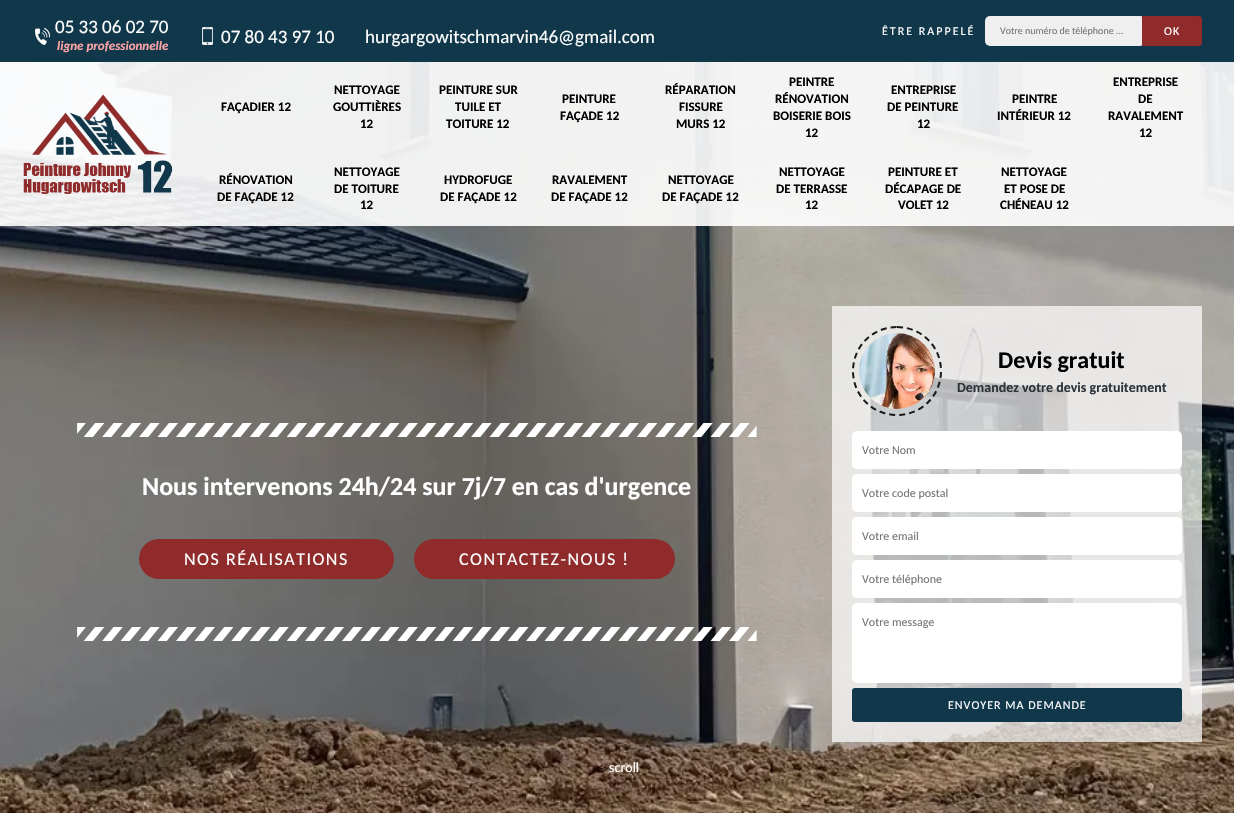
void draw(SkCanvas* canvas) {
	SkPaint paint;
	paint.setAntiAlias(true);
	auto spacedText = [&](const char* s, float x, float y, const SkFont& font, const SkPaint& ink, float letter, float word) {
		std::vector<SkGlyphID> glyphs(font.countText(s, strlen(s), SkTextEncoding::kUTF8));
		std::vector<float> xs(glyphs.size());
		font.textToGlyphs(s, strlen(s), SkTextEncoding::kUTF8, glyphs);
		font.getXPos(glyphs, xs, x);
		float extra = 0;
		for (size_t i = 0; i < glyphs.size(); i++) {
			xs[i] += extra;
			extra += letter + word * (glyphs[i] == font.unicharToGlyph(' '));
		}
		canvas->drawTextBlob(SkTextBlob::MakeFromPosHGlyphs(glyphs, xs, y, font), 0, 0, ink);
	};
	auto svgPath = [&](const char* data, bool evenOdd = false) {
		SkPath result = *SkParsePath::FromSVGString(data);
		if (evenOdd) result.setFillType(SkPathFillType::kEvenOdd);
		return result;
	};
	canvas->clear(0xffffffff);
	paint.setColor(0xff11374a);
	canvas->drawRect(SkRect::MakeXYWH(0, 0, 1234, 62), paint);
	canvas->drawImageRect(SkImages::DeferredFromEncodedData(SkData::MakeFromFileName("img1.png")), SkRect::MakeXYWH(35, 28, 15, 17), SkSamplingOptions());
	SkFont f1(fontMgr->matchFamilyStyle("Carlito", SkFontStyle::Normal()), 19);
	f1.setSubpixel(true);
	paint.setColor(0xffffffff);
	canvas->drawString("05 33 06 02 70", 55, 33, f1, paint);
	SkFont f2(fontMgr->matchFamilyStyle("Carlito", SkFontStyle::BoldItalic()), 13);
	f2.setSubpixel(true);
	paint.setColor(0xffffa5a5);
	canvas->drawString("ligne professionnelle", 57, 50, f2, paint);
	canvas->drawImageRect(SkImages::DeferredFromEncodedData(SkData::MakeFromFileName("img2.png")), SkRect::MakeXYWH(202, 27, 11, 18), SkSamplingOptions());
	paint.setColor(0xffffffff);
	canvas->drawString("07 80 43 97 10", 221, 43, f1, paint);
	canvas->drawString("hurgargowitschmarvin46@gmail.com", 365, 43, f1, paint);
	SkFont f3(fontMgr->matchFamilyStyle("Carlito", SkFontStyle::Normal()), 12);
	f3.setSubpixel(true);
	spacedText("ÊTRE RAPPELÉ", 882, 35, f3, paint, 2, 0);
	paint.setColor(0xffefefef);
	canvas->drawRoundRect(SkRect::MakeXYWH(985, 16, 160, 30), 5, 5, paint);
	SkFont f4(fontMgr->matchFamilyStyle("Carlito", SkFontStyle::Normal()), 10);
	f4.setSubpixel(true);
	paint.setColor(0xff757575);
	canvas->drawString("Votre numéro de téléphone ...", 1000, 34, f4, paint);
	paint.setColor(0xff8f2b2b);
	canvas->drawPath(svgPath("M1142 16H1199C1200.5 16 1202 17.5 1202 19V43C1202 44.5 1200.5 46 1199 46H1142Z"), paint);
	paint.setColor(0xffffffff);
	spacedText("OK", 1164, 35, f3, paint, 1, 0);
	canvas->drawImageRect(SkImages::DeferredFromEncodedData(SkData::MakeFromFileName("img4.png")), SkRect::MakeXYWH(0, 62, 1234, 751), SkSamplingOptions());
	paint.setColor(0xe6ffffff);
	canvas->drawRect(SkRect::MakeXYWH(0, 62, 1234, 164), paint);
	canvas->drawImageRect(SkImages::DeferredFromEncodedData(SkData::MakeFromFileName("img3.png")), SkRect::MakeXYWH(23, 94, 150, 100), SkSamplingOptions());
	SkFont f5(fontMgr->matchFamilyStyle("Carlito", SkFontStyle::Bold()), 13);
	f5.setSubpixel(true);
	paint.setColor(0xff000000);
	canvas->drawString("FAÇADIER 12", 221, 111, f5, paint);
	canvas->drawString("NETTOYAGE", 334, 94, f5, paint);
	canvas->drawString("GOUTTIÈRES", 333, 111, f5, paint);
	canvas->drawString("12", 360, 128, f5, paint);
	canvas->drawString("PEINTURE SUR", 439, 94, f5, paint);
	canvas->drawString("TUILE ET", 455, 111, f5, paint);
	canvas->drawString("TOITURE 12", 446, 128, f5, paint);
	canvas->drawString("PEINTURE", 562, 103, f5, paint);
	canvas->drawString("FAÇADE 12", 560, 120, f5, paint);
	canvas->drawString("RÉPARATION", 665, 94, f5, paint);
	canvas->drawString("FISSURE", 679, 111, f5, paint);
	canvas->drawString("MURS 12", 676, 128, f5, paint);
	canvas->drawString("PEINTRE", 789, 86, f5, paint);
	canvas->drawString("RÉNOVATION", 775, 103, f5, paint);
	canvas->drawString("BOISERIE BOIS", 773, 120, f5, paint);
	canvas->drawString("12", 805, 137, f5, paint);
	canvas->drawString("ENTREPRISE", 891, 94, f5, paint);
	canvas->drawString("DE PEINTURE", 887, 111, f5, paint);
	canvas->drawString("12", 917, 128, f5, paint);
	canvas->drawString("PEINTRE", 1012, 103, f5, paint);
	canvas->drawString("INTÉRIEUR 12", 997, 120, f5, paint);
	canvas->drawString("ENTREPRISE", 1113, 86, f5, paint);
	canvas->drawString("DE", 1138, 103, f5, paint);
	canvas->drawString("RAVALEMENT", 1108, 120, f5, paint);
	canvas->drawString("12", 1139, 137, f5, paint);
	canvas->drawString("RÉNOVATION", 219, 184, f5, paint);
	canvas->drawString("DE FAÇADE 12", 217, 201, f5, paint);
	canvas->drawString("NETTOYAGE", 334, 176, f5, paint);
	canvas->drawString("DE TOITURE", 334, 193, f5, paint);
	canvas->drawString("12", 360, 209, f5, paint);
	canvas->drawString("HYDROFUGE", 444, 184, f5, paint);
	canvas->drawString("DE FAÇADE 12", 440, 201, f5, paint);
	canvas->drawString("RAVALEMENT", 552, 184, f5, paint);
	canvas->drawString("DE FAÇADE 12", 551, 201, f5, paint);
	canvas->drawString("NETTOYAGE", 668, 184, f5, paint);
	canvas->drawString("DE FAÇADE 12", 662, 201, f5, paint);
	canvas->drawString("NETTOYAGE", 779, 176, f5, paint);
	canvas->drawString("DE TERRASSE", 776, 193, f5, paint);
	canvas->drawString("12", 805, 209, f5, paint);
	canvas->drawString("PEINTURE ET", 888, 176, f5, paint);
	canvas->drawString("DÉCAPAGE DE", 885, 193, f5, paint);
	canvas->drawString("VOLET 12", 898, 209, f5, paint);
	canvas->drawString("NETTOYAGE", 1001, 176, f5, paint);
	canvas->drawString("ET POSE DE", 1004, 193, f5, paint);
	canvas->drawString("CHÉNEAU 12", 1000, 209, f5, paint);
	canvas->drawImageRect(SkImages::DeferredFromEncodedData(SkData::MakeFromFileName("img5.png")), SkRect::MakeXYWH(77, 423, 680, 14), SkSamplingOptions());
	SkFont f6(fontMgr->matchFamilyStyle("Carlito", SkFontStyle::Bold()), 26);
	f6.setSubpixel(true);
	paint.setColor(0xffffffff);
	canvas->drawString("Nous intervenons 24h/24 sur 7j/7 en cas d'urgence", 142, 495, f6, paint);
	paint.setColor(0xff8f2b2b);
	canvas->drawRoundRect(SkRect::MakeXYWH(139, 539, 255, 40), 20, 20, paint);
	SkFont f7(fontMgr->matchFamilyStyle("Carlito", SkFontStyle::Normal()), 18);
	f7.setSubpixel(true);
	paint.setColor(0xffffffff);
	spacedText("NOS RÉALISATIONS", 184, 565, f7, paint, 1.5, 0);
	paint.setColor(0xff8f2b2b);
	canvas->drawRoundRect(SkRect::MakeXYWH(414, 539, 261, 40), 20, 20, paint);
	paint.setColor(0xffffffff);
	spacedText("CONTACTEZ-NOUS !", 459, 565, f7, paint, 1.5, 0);
	canvas->drawImageRect(SkImages::DeferredFromEncodedData(SkData::MakeFromFileName("img6.png")), SkRect::MakeXYWH(77, 627, 680, 14), SkSamplingOptions());
	paint.setColor(0xb5ffffff);
	canvas->drawRect(SkRect::MakeXYWH(832, 306, 370, 436), paint);
	paint.setStroke(true);
	paint.setStrokeWidth(2);
	paint.setColor(0xff181918);
	paint.setPathEffect(SkDashPathEffect::Make({{6, 4}}, 0));
	canvas->drawPath(svgPath("M897 327C921.5 327 941 346.5 941 371C941 395.5 921.5 415 897 415C872.5 415 853 395.5 853 371C853 346.5 872.5 327 897 327Z"), paint);
	paint.setPathEffect(nullptr);
	canvas->drawImageRect(SkImages::DeferredFromEncodedData(SkData::MakeFromFileName("img7.png")), SkRect::MakeXYWH(859, 333, 76, 76), SkSamplingOptions());
	SkFont f8(fontMgr->matchFamilyStyle("Carlito", SkFontStyle::Bold()), 24);
	f8.setSubpixel(true);
	paint.setStroke(false);
	paint.setColor(0xff000000);
	canvas->drawString("Devis gratuit", 998, 368, f8, paint);
	SkFont f9(fontMgr->matchFamilyStyle("Carlito", SkFontStyle::Bold()), 14);
	f9.setSubpixel(true);
	paint.setColor(0xff2c3339);
	canvas->drawString("Demandez votre devis gratuitement", 957, 392, f9, paint);
	paint.setColor(0xffffffff);
	canvas->drawRoundRect(SkRect::MakeXYWH(852, 431, 330, 38), 5, 5, paint);
	paint.setColor(0xff757575);
	canvas->drawString("Votre Nom", 862, 454, f3, paint);
	paint.setColor(0xffffffff);
	canvas->drawRoundRect(SkRect::MakeXYWH(852, 474, 330, 38), 5, 5, paint);
	paint.setColor(0xff757575);
	canvas->drawString("Votre code postal", 862, 497, f3, paint);
	paint.setColor(0xffffffff);
	canvas->drawRoundRect(SkRect::MakeXYWH(852, 517, 330, 38), 5, 5, paint);
	paint.setColor(0xff757575);
	canvas->drawString("Votre email", 862, 540, f3, paint);
	paint.setColor(0xffffffff);
	canvas->drawRoundRect(SkRect::MakeXYWH(852, 560, 330, 38), 5, 5, paint);
	paint.setColor(0xff757575);
	canvas->drawString("Votre téléphone", 862, 583, f3, paint);
	paint.setColor(0xffffffff);
	canvas->drawRoundRect(SkRect::MakeXYWH(852, 603, 330, 80), 5, 5, paint);
	paint.setColor(0xff757575);
	canvas->drawString("Votre message", 862, 626, f3, paint);
	paint.setColor(0xff11374a);
	canvas->drawRoundRect(SkRect::MakeXYWH(852, 688, 330, 34), 3, 3, paint);
	paint.setColor(0xffffffff);
	spacedText("ENVOYER MA DEMANDE", 948, 709, f3, paint, 1, 0);
	canvas->drawImageRect(SkImages::DeferredFromEncodedData(SkData::MakeFromFileName("img8.png")), SkRect::MakeXYWH(594, 766, 16, 7), SkSamplingOptions());
	SkFont f10(fontMgr->matchFamilyStyle("Carlito", SkFontStyle::Normal()), 14);
	f10.setSubpixel(true);
	canvas->drawString("scroll", 609, 772, f10, paint);
}
